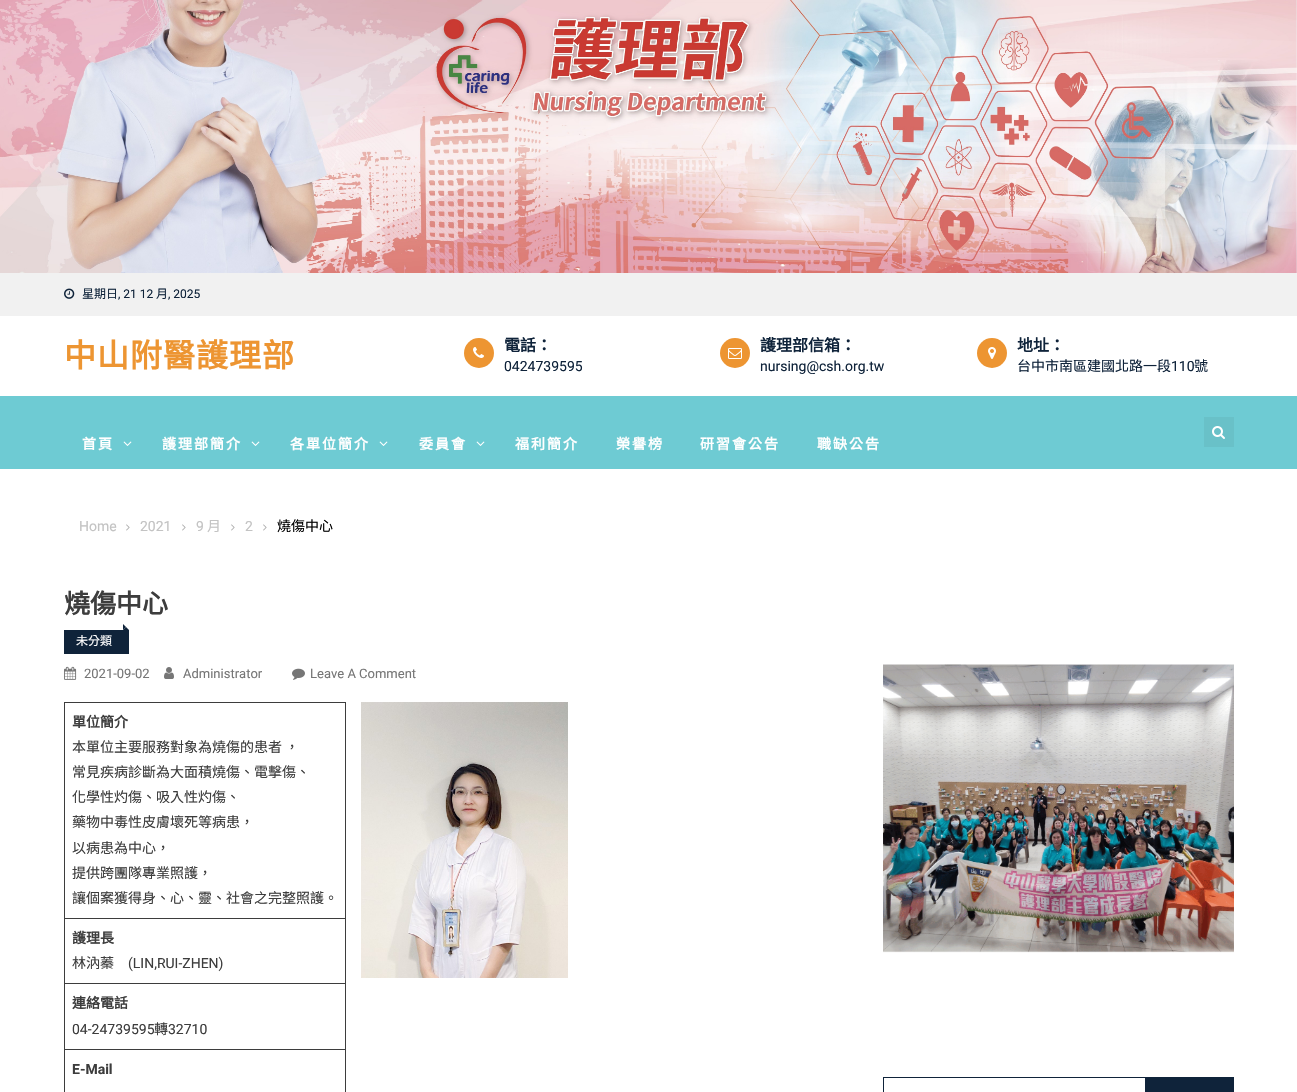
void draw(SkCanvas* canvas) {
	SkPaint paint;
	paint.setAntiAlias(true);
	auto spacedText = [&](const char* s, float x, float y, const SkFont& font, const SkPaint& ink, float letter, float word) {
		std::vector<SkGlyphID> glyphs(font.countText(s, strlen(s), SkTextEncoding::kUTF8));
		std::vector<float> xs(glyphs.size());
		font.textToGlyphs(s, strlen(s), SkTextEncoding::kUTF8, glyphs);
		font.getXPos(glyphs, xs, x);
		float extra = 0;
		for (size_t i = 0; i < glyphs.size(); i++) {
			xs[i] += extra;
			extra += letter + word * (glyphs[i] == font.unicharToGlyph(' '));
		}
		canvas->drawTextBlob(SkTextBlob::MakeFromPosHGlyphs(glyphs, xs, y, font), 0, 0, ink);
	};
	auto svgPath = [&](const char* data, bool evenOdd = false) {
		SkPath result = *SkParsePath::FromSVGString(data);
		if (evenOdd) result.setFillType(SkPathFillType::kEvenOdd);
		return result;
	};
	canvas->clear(0xffffffff);
	canvas->drawImageRect(SkImages::DeferredFromEncodedData(SkData::MakeFromFileName("img1.png")), SkRect::MakeXYWH(0, 0, 1297, 273), SkSamplingOptions());
	paint.setColor(0xfff1f1f1);
	canvas->drawRect(SkRect::MakeXYWH(0, 273, 1297, 43), paint);
	canvas->drawImageRect(SkImages::DeferredFromEncodedData(SkData::MakeFromFileName("img2.png")), SkRect::MakeXYWH(64, 288, 11, 11), SkSamplingOptions());
	SkFont f1(fontMgr->matchFamilyStyle("Noto Sans CJK TC", SkFontStyle::Normal()), 12);
	f1.setSubpixel(true);
	paint.setColor(0xff0f233a);
	canvas->drawString("星期日", 82, 298, f1, paint);
	SkFont f2(fontMgr->matchFamilyStyle("Roboto", SkFontStyle::Normal()), 12);
	f2.setSubpixel(true);
	canvas->drawString(", 21 12", 118, 298, f2, paint);
	canvas->drawString("月", 156, 298, f1, paint);
	canvas->drawString(", 2025", 168, 298, f2, paint);
	SkFont f3(fontMgr->matchFamilyStyle("Noto Sans CJK TC", SkFontStyle::Bold()), 32);
	f3.setSubpixel(true);
	paint.setColor(0xffed9532);
	spacedText("中山附醫護理部", 64, 367, f3, paint, 1, 0);
	canvas->drawCircle(479, 353, 15, paint);
	canvas->drawImageRect(SkImages::DeferredFromEncodedData(SkData::MakeFromFileName("img3.png")), SkRect::MakeXYWH(473, 347, 11, 11), SkSamplingOptions());
	SkFont f4(fontMgr->matchFamilyStyle("Noto Sans CJK TC", SkFontStyle::Bold()), 16);
	f4.setSubpixel(true);
	paint.setColor(0xff0f233a);
	canvas->drawString("電話：", 504, 351, f4, paint);
	SkFont f5(fontMgr->matchFamilyStyle("Roboto", SkFontStyle::Normal()), 14);
	f5.setSubpixel(true);
	canvas->drawString("0424739595", 504, 371, f5, paint);
	paint.setColor(0xffed9532);
	canvas->drawCircle(735, 353, 15, paint);
	canvas->drawImageRect(SkImages::DeferredFromEncodedData(SkData::MakeFromFileName("img4.png")), SkRect::MakeXYWH(728, 348, 14, 11), SkSamplingOptions());
	paint.setColor(0xff0f233a);
	canvas->drawString("護理部信箱：", 760, 351, f4, paint);
	canvas->drawString("nursing@csh.org.tw", 760, 371, f5, paint);
	paint.setColor(0xffed9532);
	canvas->drawCircle(992, 353, 15, paint);
	canvas->drawImageRect(SkImages::DeferredFromEncodedData(SkData::MakeFromFileName("img5.png")), SkRect::MakeXYWH(988, 347, 8, 12), SkSamplingOptions());
	paint.setColor(0xff0f233a);
	canvas->drawString("地址：", 1017, 351, f4, paint);
	SkFont f6(fontMgr->matchFamilyStyle("Noto Sans CJK TC", SkFontStyle::Normal()), 14);
	f6.setSubpixel(true);
	canvas->drawString("台中市南區建國北路一段", 1017, 371, f6, paint);
	canvas->drawString("110", 1171, 371, f5, paint);
	canvas->drawString("號", 1194, 371, f6, paint);
	paint.setColor(0xff6ecbd3);
	canvas->drawRect(SkRect::MakeXYWH(0, 396, 1297, 73), paint);
	SkFont f7(fontMgr->matchFamilyStyle("Noto Sans CJK TC", SkFontStyle::Bold()), 14);
	f7.setSubpixel(true);
	paint.setColor(0xffffffff);
	spacedText("首頁", 82, 449, f7, paint, 2, 0);
	canvas->drawImageRect(SkImages::DeferredFromEncodedData(SkData::MakeFromFileName("img6.png")), SkRect::MakeXYWH(123, 441, 9, 5), SkSamplingOptions());
	spacedText("護理部簡介", 162, 449, f7, paint, 2, 0);
	canvas->drawImageRect(SkImages::DeferredFromEncodedData(SkData::MakeFromFileName("img6.png")), SkRect::MakeXYWH(251, 441, 9, 5), SkSamplingOptions());
	spacedText("各單位簡介", 290, 449, f7, paint, 2, 0);
	canvas->drawImageRect(SkImages::DeferredFromEncodedData(SkData::MakeFromFileName("img6.png")), SkRect::MakeXYWH(379, 441, 9, 5), SkSamplingOptions());
	spacedText("委員會", 419, 449, f7, paint, 2, 0);
	canvas->drawImageRect(SkImages::DeferredFromEncodedData(SkData::MakeFromFileName("img6.png")), SkRect::MakeXYWH(476, 441, 9, 5), SkSamplingOptions());
	spacedText("福利簡介", 515, 449, f7, paint, 2, 0);
	spacedText("榮譽榜", 616, 449, f7, paint, 2, 0);
	spacedText("研習會公告", 700, 449, f7, paint, 2, 0);
	spacedText("職缺公告", 817, 449, f7, paint, 2, 0);
	paint.setColor(0xff69c1c8);
	canvas->drawRect(SkRect::MakeXYWH(1204, 417, 30, 30), paint);
	canvas->drawImageRect(SkImages::DeferredFromEncodedData(SkData::MakeFromFileName("img7.png")), SkRect::MakeXYWH(1212, 426, 13, 13), SkSamplingOptions());
	paint.setColor(0xffc3c3c3);
	canvas->drawString("Home", 79, 531, f5, paint);
	canvas->drawImageRect(SkImages::DeferredFromEncodedData(SkData::MakeFromFileName("img8.png")), SkRect::MakeXYWH(126, 524, 4, 7), SkSamplingOptions());
	canvas->drawString("2021", 140, 531, f5, paint);
	canvas->drawImageRect(SkImages::DeferredFromEncodedData(SkData::MakeFromFileName("img8.png")), SkRect::MakeXYWH(182, 524, 4, 7), SkSamplingOptions());
	canvas->drawString("9", 196, 531, f5, paint);
	canvas->drawString("月", 207, 531, f6, paint);
	canvas->drawImageRect(SkImages::DeferredFromEncodedData(SkData::MakeFromFileName("img8.png")), SkRect::MakeXYWH(231, 524, 4, 7), SkSamplingOptions());
	canvas->drawString("2", 245, 531, f5, paint);
	canvas->drawImageRect(SkImages::DeferredFromEncodedData(SkData::MakeFromFileName("img8.png")), SkRect::MakeXYWH(263, 524, 4, 7), SkSamplingOptions());
	paint.setColor(0xff000000);
	canvas->drawString("燒傷中心", 277, 531, f6, paint);
	SkFont f8(fontMgr->matchFamilyStyle("Noto Sans CJK TC", SkFontStyle::Bold()), 26);
	f8.setSubpixel(true);
	paint.setColor(0xff3d3d3d);
	canvas->drawString("燒傷中心", 64, 613, f8, paint);
	paint.setColor(0xff0f233a);
	canvas->drawRect(SkRect::MakeXYWH(64, 630, 65, 24), paint);
	canvas->drawPath(svgPath("M129 630H123L126 627Z"), paint);
	canvas->drawPath(svgPath("M123 630V624L126 627Z"), paint);
	paint.setColor(0xffffffff);
	canvas->drawString("未分類", 76, 645, f1, paint);
	canvas->drawImageRect(SkImages::DeferredFromEncodedData(SkData::MakeFromFileName("img9.png")), SkRect::MakeXYWH(64, 666, 13, 14), SkSamplingOptions());
	SkFont f9(fontMgr->matchFamilyStyle("Roboto", SkFontStyle::Normal()), 13);
	f9.setSubpixel(true);
	paint.setColor(0xff767676);
	canvas->drawString("2021-09-02", 84, 678, f9, paint);
	canvas->drawImageRect(SkImages::DeferredFromEncodedData(SkData::MakeFromFileName("img10.png")), SkRect::MakeXYWH(164, 667, 10, 12), SkSamplingOptions());
	canvas->drawString("Administrator", 183, 678, f9, paint);
	canvas->drawImageRect(SkImages::DeferredFromEncodedData(SkData::MakeFromFileName("img11.png")), SkRect::MakeXYWH(292, 668, 13, 12), SkSamplingOptions());
	canvas->drawString("Leave A Comment", 310, 678, f9, paint);
	paint.setColor(0xff3d3d3d);
	canvas->drawRect(SkRect::MakeXYWH(64, 702, 282, 1), paint);
	canvas->drawRect(SkRect::MakeXYWH(64, 918, 282, 1), paint);
	canvas->drawRect(SkRect::MakeXYWH(64, 983, 282, 1), paint);
	canvas->drawRect(SkRect::MakeXYWH(64, 1049, 282, 1), paint);
	canvas->drawRect(SkRect::MakeXYWH(345, 1049, 1, 43), paint);
	canvas->drawRect(SkRect::MakeXYWH(345, 983, 1, 67), paint);
	canvas->drawRect(SkRect::MakeXYWH(345, 918, 1, 66), paint);
	canvas->drawRect(SkRect::MakeXYWH(345, 702, 1, 217), paint);
	canvas->drawRect(SkRect::MakeXYWH(64, 1049, 1, 43), paint);
	canvas->drawRect(SkRect::MakeXYWH(64, 983, 1, 67), paint);
	canvas->drawRect(SkRect::MakeXYWH(64, 918, 1, 66), paint);
	canvas->drawRect(SkRect::MakeXYWH(64, 702, 1, 217), paint);
	canvas->drawString("單位簡介", 72, 727, f7, paint);
	canvas->drawString("本單位主要服務對象為燒傷的患者", 72, 752, f6, paint);
	canvas->drawString("，", 285, 752, f6, paint);
	canvas->drawString("常見疾病診斷為大面積燒傷、電擊傷、", 72, 777, f6, paint);
	canvas->drawString("化學性灼傷、吸入性灼傷、", 72, 802, f6, paint);
	canvas->drawString("藥物中毒性皮膚壞死等病患，", 72, 827, f6, paint);
	canvas->drawString("以病患為中心，", 72, 853, f6, paint);
	canvas->drawString("提供跨團隊專業照護，", 72, 878, f6, paint);
	canvas->drawString("讓個案獲得身、心、靈、社會之完整照護。", 72, 903, f6, paint);
	canvas->drawString("護理長", 72, 943, f7, paint);
	canvas->drawString("林汭蓁", 72, 968, f6, paint);
	canvas->drawString("(LIN,RUI-ZHEN)", 128, 968, f5, paint);
	canvas->drawString("連絡電話", 72, 1008, f7, paint);
	canvas->drawString("04-24739595", 72, 1034, f5, paint);
	canvas->drawString("轉", 154, 1034, f6, paint);
	canvas->drawString("32710", 168, 1034, f5, paint);
	SkFont f10(fontMgr->matchFamilyStyle("Roboto", SkFontStyle::Bold()), 14);
	f10.setSubpixel(true);
	canvas->drawString("E-Mail", 72, 1074, f10, paint);
	canvas->drawImageRect(SkImages::DeferredFromEncodedData(SkData::MakeFromFileName("img12.png")), SkRect::MakeXYWH(361, 702, 207, 276), SkSamplingOptions());
	canvas->drawImageRect(SkImages::DeferredFromEncodedData(SkData::MakeFromFileName("img13.png")), SkRect::MakeXYWH(883, 664, 351, 289), SkSamplingOptions());
	paint.setStroke(true);
	paint.setStrokeWidth(1);
	paint.setColor(0xff0f233a);
	canvas->drawRect(SkRect::MakeXYWH(883.5, 1077.5, 262, 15), paint);
	paint.setStroke(false);
	canvas->drawRect(SkRect::MakeXYWH(1146, 1077, 88, 15), paint);
}
